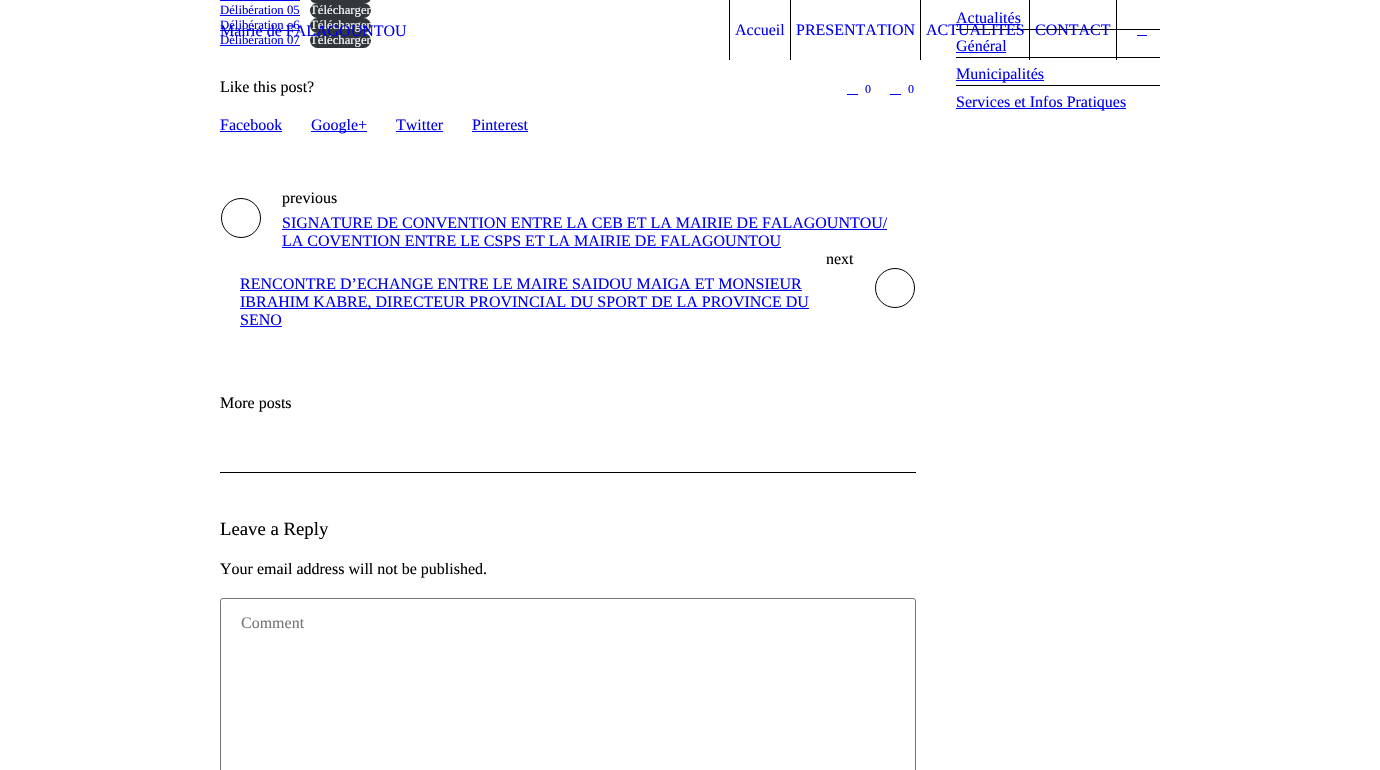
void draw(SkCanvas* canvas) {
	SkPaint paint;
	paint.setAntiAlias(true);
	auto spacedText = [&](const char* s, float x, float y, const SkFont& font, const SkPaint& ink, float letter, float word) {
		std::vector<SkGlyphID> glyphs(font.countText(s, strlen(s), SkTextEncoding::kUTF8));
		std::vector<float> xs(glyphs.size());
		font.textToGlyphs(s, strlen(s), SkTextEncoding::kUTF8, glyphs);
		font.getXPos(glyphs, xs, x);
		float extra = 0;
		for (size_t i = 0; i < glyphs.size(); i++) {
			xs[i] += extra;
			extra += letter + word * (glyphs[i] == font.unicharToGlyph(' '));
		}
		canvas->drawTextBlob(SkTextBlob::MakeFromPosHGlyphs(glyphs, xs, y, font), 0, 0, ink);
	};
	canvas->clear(0xffffffff);
	paint.setColor(0xff0000ee);
	canvas->drawRect(SkRect::MakeXYWH(220, 0, 80, 1), paint);
	paint.setColor(0xff32373c);
	canvas->drawRoundRect(SkRect::MakeXYWH(310, -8, 61, 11), 7.5, 7.5, paint);
	SkFont f1(fontMgr->matchFamilyStyle("Liberation Serif", SkFontStyle::Normal()), 12.75);
	f1.setSubpixel(true);
	paint.setColor(0xff0000ee);
	canvas->drawString("Délibération 05", 220, 14, f1, paint);
	canvas->drawRect(SkRect::MakeXYWH(220, 15, 80, 1), paint);
	paint.setColor(0xff32373c);
	canvas->drawRoundRect(SkRect::MakeXYWH(310, 3, 61, 15), 7.5, 7.5, paint);
	paint.setColor(0xffffffff);
	canvas->drawString("Télécharger", 310, 14, f1, paint);
	paint.setColor(0xff0000ee);
	canvas->drawString("Délibération o6", 220, 29, f1, paint);
	canvas->drawRect(SkRect::MakeXYWH(220, 30, 80, 1), paint);
	paint.setColor(0xff32373c);
	canvas->drawRoundRect(SkRect::MakeXYWH(310, 18, 61, 15), 7.5, 7.5, paint);
	paint.setColor(0xffffffff);
	canvas->drawString("Télécharger", 310, 29, f1, paint);
	paint.setColor(0xff0000ee);
	canvas->drawString("Délibération 07", 220, 44, f1, paint);
	canvas->drawRect(SkRect::MakeXYWH(220, 45, 80, 1), paint);
	paint.setColor(0xff32373c);
	canvas->drawRoundRect(SkRect::MakeXYWH(310, 33, 61, 15), 7.5, 7.5, paint);
	paint.setColor(0xffffffff);
	canvas->drawString("Télécharger", 310, 44, f1, paint);
	SkFont f2(fontMgr->matchFamilyStyle("Liberation Serif", SkFontStyle::Normal()), 16);
	f2.setSubpixel(true);
	paint.setColor(0xff000000);
	canvas->drawString("Like this post?", 220, 92, f2, paint);
	paint.setColor(0xff0000ee);
	canvas->drawString("Facebook", 220, 130, f2, paint);
	canvas->drawRect(SkRect::MakeXYWH(220, 131, 62, 1), paint);
	canvas->drawRect(SkRect::MakeXYWH(311, 131, 56, 1), paint);
	canvas->drawString("Google+", 311, 130, f2, paint);
	canvas->drawString("Twitter", 396, 130, f2, paint);
	canvas->drawRect(SkRect::MakeXYWH(396, 131, 47, 1), paint);
	canvas->drawString("Pinterest", 472, 130, f2, paint);
	canvas->drawRect(SkRect::MakeXYWH(472, 131, 56, 1), paint);
	SkFont f3(fontMgr->matchFamilyStyle("Liberation Serif", SkFontStyle::Normal()), 12);
	f3.setSubpixel(true);
	spacedText("0", 865, 93, f3, paint, 2, 0);
	canvas->drawRect(SkRect::MakeXYWH(847, 94, 11, 1), paint);
	spacedText("0", 908, 93, f3, paint, 2, 0);
	canvas->drawRect(SkRect::MakeXYWH(890, 94, 11, 1), paint);
	paint.setStroke(true);
	paint.setStrokeWidth(1);
	paint.setColor(0xff000000);
	canvas->drawCircle(241, 218, 19.5, paint);
	paint.setStroke(false);
	canvas->drawString("previous", 282, 203, f2, paint);
	paint.setColor(0xff0000ee);
	canvas->drawString("SIGNATURE DE CONVENTION ENTRE LA CEB ET LA MAIRIE DE FALAGOUNTOU/", 282, 228, f2, paint);
	canvas->drawRect(SkRect::MakeXYWH(282, 229, 605, 1), paint);
	canvas->drawString("LA COVENTION ENTRE LE CSPS ET LA MAIRIE DE FALAGOUNTOU", 282, 246, f2, paint);
	canvas->drawRect(SkRect::MakeXYWH(282, 247, 499, 1), paint);
	paint.setColor(0xff000000);
	canvas->drawString("next", 826, 264, f2, paint);
	paint.setColor(0xff0000ee);
	canvas->drawString("RENCONTRE D’ECHANGE ENTRE LE MAIRE SAIDOU MAIGA ET MONSIEUR", 240, 289, f2, paint);
	canvas->drawRect(SkRect::MakeXYWH(240, 290, 562, 1), paint);
	canvas->drawRect(SkRect::MakeXYWH(240, 308, 569, 1), paint);
	canvas->drawString("IBRAHIM KABRE, DIRECTEUR PROVINCIAL DU SPORT DE LA PROVINCE DU", 240, 307, f2, paint);
	canvas->drawString("SENO", 240, 325, f2, paint);
	canvas->drawRect(SkRect::MakeXYWH(240, 326, 42, 1), paint);
	paint.setStroke(true);
	paint.setColor(0xff000000);
	canvas->drawCircle(895, 288, 19.5, paint);
	paint.setStroke(false);
	canvas->drawString("More posts", 220, 408, f2, paint);
	canvas->drawRect(SkRect::MakeXYWH(220, 472, 696, 1), paint);
	SkFont f4(fontMgr->matchFamilyStyle("Liberation Serif", SkFontStyle::Normal()), 18.75);
	f4.setSubpixel(true);
	canvas->drawString("Leave a Reply", 220, 535, f4, paint);
	canvas->drawString("Your email address will not be published.", 220, 574, f2, paint);
	paint.setStroke(true);
	paint.setColor(0xff767676);
	canvas->drawRoundRect(SkRect::MakeXYWH(220.5, 598.5, 695, 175), 2.5, 2.5, paint);
	paint.setStroke(false);
	paint.setColor(0xff757575);
	canvas->drawString("Comment", 241, 628, f2, paint);
	paint.setColor(0xff000000);
	canvas->drawRect(SkRect::MakeXYWH(956, 29, 204, 1), paint);
	paint.setColor(0xff0000ee);
	canvas->drawString("Actualités", 956, 23, f2, paint);
	canvas->drawRect(SkRect::MakeXYWH(956, 24, 64, 1), paint);
	paint.setColor(0xff000000);
	canvas->drawRect(SkRect::MakeXYWH(956, 57, 204, 1), paint);
	paint.setColor(0xff0000ee);
	canvas->drawString("Général", 956, 51, f2, paint);
	canvas->drawRect(SkRect::MakeXYWH(956, 52, 50, 1), paint);
	paint.setColor(0xff000000);
	canvas->drawRect(SkRect::MakeXYWH(956, 85, 204, 1), paint);
	paint.setColor(0xff0000ee);
	canvas->drawRect(SkRect::MakeXYWH(956, 80, 88, 1), paint);
	canvas->drawString("Municipalités", 956, 79, f2, paint);
	canvas->drawRect(SkRect::MakeXYWH(956, 108, 170, 1), paint);
	canvas->drawString("Services et Infos Pratiques", 956, 107, f2, paint);
	canvas->drawString("Mairie de FALAGOUNTOU", 220, 36, f2, paint);
	paint.setColor(0xff000000);
	canvas->drawRect(SkRect::MakeXYWH(729, 0, 1, 60), paint);
	paint.setColor(0xff0000ee);
	canvas->drawString("Accueil", 735, 35, f2, paint);
	paint.setColor(0xff000000);
	canvas->drawRect(SkRect::MakeXYWH(790, 0, 1, 60), paint);
	paint.setColor(0xff0000ee);
	canvas->drawString("PRESENTATION", 796, 35, f2, paint);
	paint.setColor(0xff000000);
	canvas->drawRect(SkRect::MakeXYWH(920, 0, 1, 60), paint);
	paint.setColor(0xff0000ee);
	canvas->drawString("ACTUALITES", 926, 35, f2, paint);
	paint.setColor(0xff000000);
	canvas->drawRect(SkRect::MakeXYWH(1116, 0, 1, 60), paint);
	canvas->drawRect(SkRect::MakeXYWH(1029, 0, 1, 60), paint);
	paint.setColor(0xff0000ee);
	canvas->drawString("CONTACT", 1035, 35, f2, paint);
	canvas->drawRect(SkRect::MakeXYWH(1137, 35, 10, 1), paint);
}
